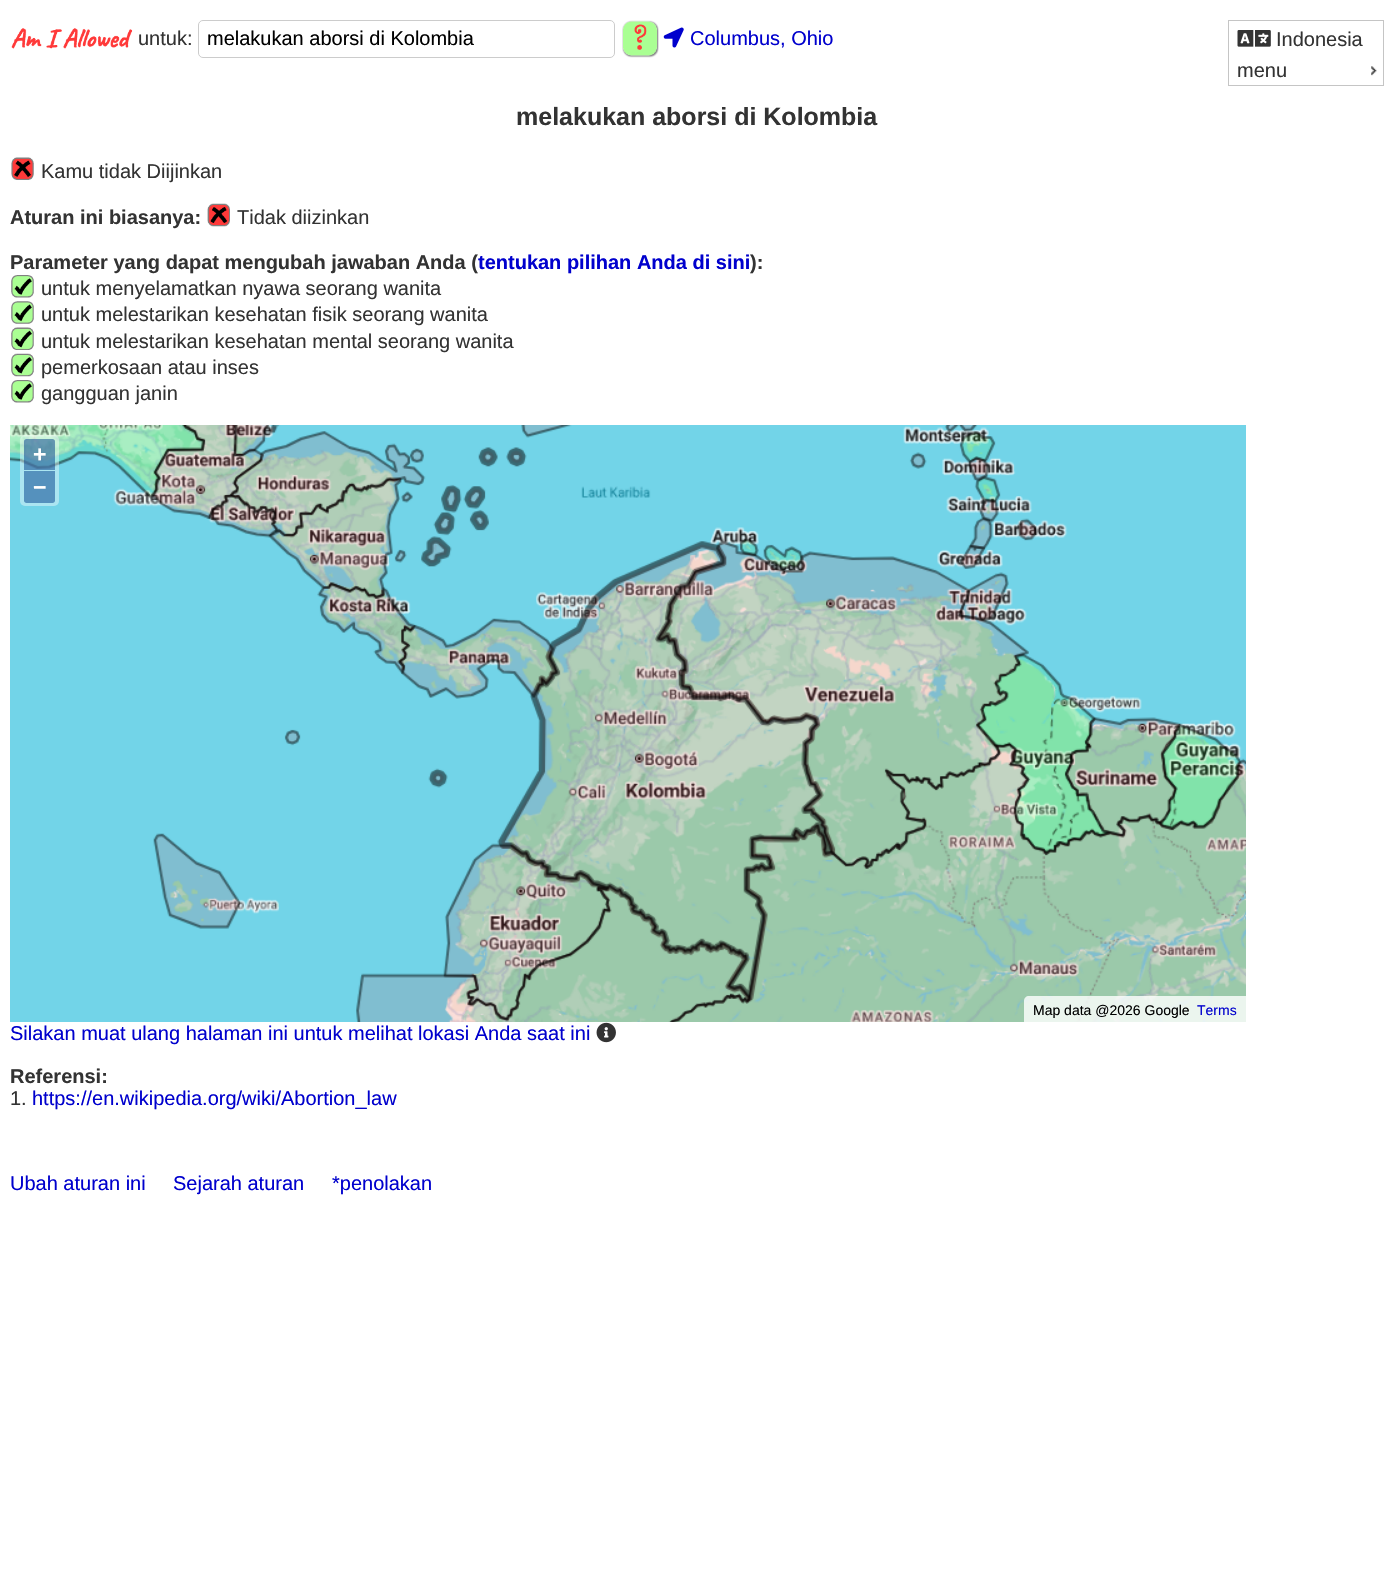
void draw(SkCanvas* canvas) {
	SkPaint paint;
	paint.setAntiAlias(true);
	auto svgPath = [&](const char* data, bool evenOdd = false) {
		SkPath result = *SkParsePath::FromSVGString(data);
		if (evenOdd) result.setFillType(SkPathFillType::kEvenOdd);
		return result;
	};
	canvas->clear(0xffffffff);
	canvas->drawImageRect(SkImages::DeferredFromEncodedData(SkData::MakeFromFileName("img1.png")), SkRect::MakeXYWH(11, 28, 122, 21), SkSamplingOptions());
	SkFont f1(fontMgr->matchFamilyStyle("Liberation Sans", SkFontStyle::Normal()), 20);
	f1.setSubpixel(true);
	paint.setColor(0xff333333);
	canvas->drawString("untuk:", 138, 45, f1, paint);
	paint.setStroke(true);
	paint.setStrokeWidth(1);
	paint.setColor(0xffcccccc);
	canvas->drawRoundRect(SkRect::MakeXYWH(198.5, 20.5, 416, 37), 4.5, 4.5, paint);
	paint.setStroke(false);
	paint.setColor(0xff000000);
	canvas->drawString("melakukan aborsi di Kolombia", 207, 45, f1, paint);
	canvas->drawImageRect(SkImages::DeferredFromEncodedData(SkData::MakeFromFileName("img2.png")), SkRect::MakeXYWH(622, 20, 37, 38), SkSamplingOptions());
	canvas->drawImageRect(SkImages::DeferredFromEncodedData(SkData::MakeFromFileName("img3.png")), SkRect::MakeXYWH(663, 27, 21, 21), SkSamplingOptions());
	paint.setColor(0xff0000cd);
	canvas->drawString("Columbus, Ohio", 690, 45, f1, paint);
	paint.setStroke(true);
	paint.setColor(0xffc5c5c5);
	canvas->drawRect(SkRect::MakeXYWH(1228.5, 20.5, 155, 65), paint);
	canvas->drawImageRect(SkImages::DeferredFromEncodedData(SkData::MakeFromFileName("img4.png")), SkRect::MakeXYWH(1237, 30, 34, 17), SkSamplingOptions());
	paint.setStroke(false);
	paint.setColor(0xff333333);
	canvas->drawString("Indonesia", 1276, 46, f1, paint);
	canvas->drawString("menu", 1237, 77, f1, paint);
	canvas->drawImageRect(SkImages::DeferredFromEncodedData(SkData::MakeFromFileName("img5.png")), SkRect::MakeXYWH(1371, 66, 6, 10), SkSamplingOptions());
	SkFont f2(fontMgr->matchFamilyStyle("Liberation Sans", SkFontStyle::Bold()), 25);
	f2.setSubpixel(true);
	canvas->drawString("melakukan aborsi di Kolombia", 516, 125, f2, paint);
	canvas->drawImageRect(SkImages::DeferredFromEncodedData(SkData::MakeFromFileName("img6.png")), SkRect::MakeXYWH(11, 157, 23, 23), SkSamplingOptions());
	canvas->drawString("Kamu tidak Diijinkan", 41, 178, f1, paint);
	SkFont f3(fontMgr->matchFamilyStyle("Liberation Sans", SkFontStyle::Bold()), 20);
	f3.setSubpixel(true);
	canvas->drawString("Aturan ini biasanya:", 10, 224, f3, paint);
	canvas->drawImageRect(SkImages::DeferredFromEncodedData(SkData::MakeFromFileName("img7.png")), SkRect::MakeXYWH(207, 203, 23, 24), SkSamplingOptions());
	canvas->drawString("Tidak diizinkan", 237, 224, f1, paint);
	canvas->drawString("Parameter yang dapat mengubah jawaban Anda (", 10, 269, f3, paint);
	paint.setColor(0xff0000cd);
	canvas->drawString("tentukan pilihan Anda di sini", 478, 269, f3, paint);
	paint.setColor(0xff333333);
	canvas->drawString("):", 750, 269, f3, paint);
	canvas->drawImageRect(SkImages::DeferredFromEncodedData(SkData::MakeFromFileName("img8.png")), SkRect::MakeXYWH(11, 275, 23, 23), SkSamplingOptions());
	canvas->drawString("untuk menyelamatkan nyawa seorang wanita", 41, 295, f1, paint);
	canvas->drawImageRect(SkImages::DeferredFromEncodedData(SkData::MakeFromFileName("img9.png")), SkRect::MakeXYWH(11, 301, 23, 23), SkSamplingOptions());
	canvas->drawString("untuk melestarikan kesehatan fisik seorang wanita", 41, 321, f1, paint);
	canvas->drawImageRect(SkImages::DeferredFromEncodedData(SkData::MakeFromFileName("img10.png")), SkRect::MakeXYWH(11, 327, 23, 23), SkSamplingOptions());
	canvas->drawString("untuk melestarikan kesehatan mental seorang wanita", 41, 348, f1, paint);
	canvas->drawImageRect(SkImages::DeferredFromEncodedData(SkData::MakeFromFileName("img11.png")), SkRect::MakeXYWH(11, 353, 23, 24), SkSamplingOptions());
	canvas->drawString("pemerkosaan atau inses", 41, 374, f1, paint);
	canvas->drawImageRect(SkImages::DeferredFromEncodedData(SkData::MakeFromFileName("img8.png")), SkRect::MakeXYWH(11, 380, 23, 23), SkSamplingOptions());
	canvas->drawString("gangguan janin", 41, 400, f1, paint);
	canvas->drawImageRect(SkImages::DeferredFromEncodedData(SkData::MakeFromFileName("img12.png")), SkRect::MakeXYWH(10, 425, 1236, 597), SkSamplingOptions());
	paint.setColor(0x66ffffff);
	canvas->drawRoundRect(SkRect::MakeXYWH(20, 435, 39, 71), 5, 5, paint);
	paint.setColor(0x80003c88);
	canvas->drawPath(svgPath("M26.5 439H52.5C54 439 55 440 55 441.5V470H24V441.5C24 440 25 439 26.5 439Z"), paint);
	SkFont f4(fontMgr->matchFamilyStyle("Liberation Sans", SkFontStyle::Bold()), 23);
	f4.setSubpixel(true);
	paint.setColor(0xffffffff);
	canvas->drawString("+", 33, 462, f4, paint);
	paint.setColor(0xff5591bd);
	canvas->drawPath(svgPath("M24 471H55V500.5C55 502 54 503 52.5 503H26.5C25 503 24 502 24 500.5Z"), paint);
	paint.setColor(0xffffffff);
	canvas->drawString("−", 33, 495, f4, paint);
	paint.setColor(0xccffffff);
	canvas->drawPath(svgPath("M1029 996H1246V1023H1024V1001C1024 998 1026 996 1029 996Z"), paint);
	SkFont f5(fontMgr->matchFamilyStyle("Liberation Sans", SkFontStyle::Normal()), 14);
	f5.setSubpixel(true);
	paint.setColor(0xff000000);
	canvas->drawString("Map data @2026 Google", 1033, 1015, f5, paint);
	paint.setColor(0xff0000cd);
	canvas->drawString("Terms", 1197, 1015, f5, paint);
	canvas->drawString("Silakan muat ulang halaman ini untuk melihat lokasi Anda saat ini", 10, 1040, f1, paint);
	canvas->drawImageRect(SkImages::DeferredFromEncodedData(SkData::MakeFromFileName("img13.png")), SkRect::MakeXYWH(596, 1022, 20, 21), SkSamplingOptions());
	paint.setColor(0xff333333);
	canvas->drawString("Referensi:", 10, 1083, f3, paint);
	canvas->drawString("1.", 10, 1105, f1, paint);
	paint.setColor(0xff0000cd);
	canvas->drawString("https://en.wikipedia.org/wiki/Abortion_law", 32, 1105, f1, paint);
	canvas->drawString("Ubah aturan ini", 10, 1190, f1, paint);
	canvas->drawString("Sejarah aturan", 173, 1190, f1, paint);
	canvas->drawString("*penolakan", 332, 1190, f1, paint);
}
